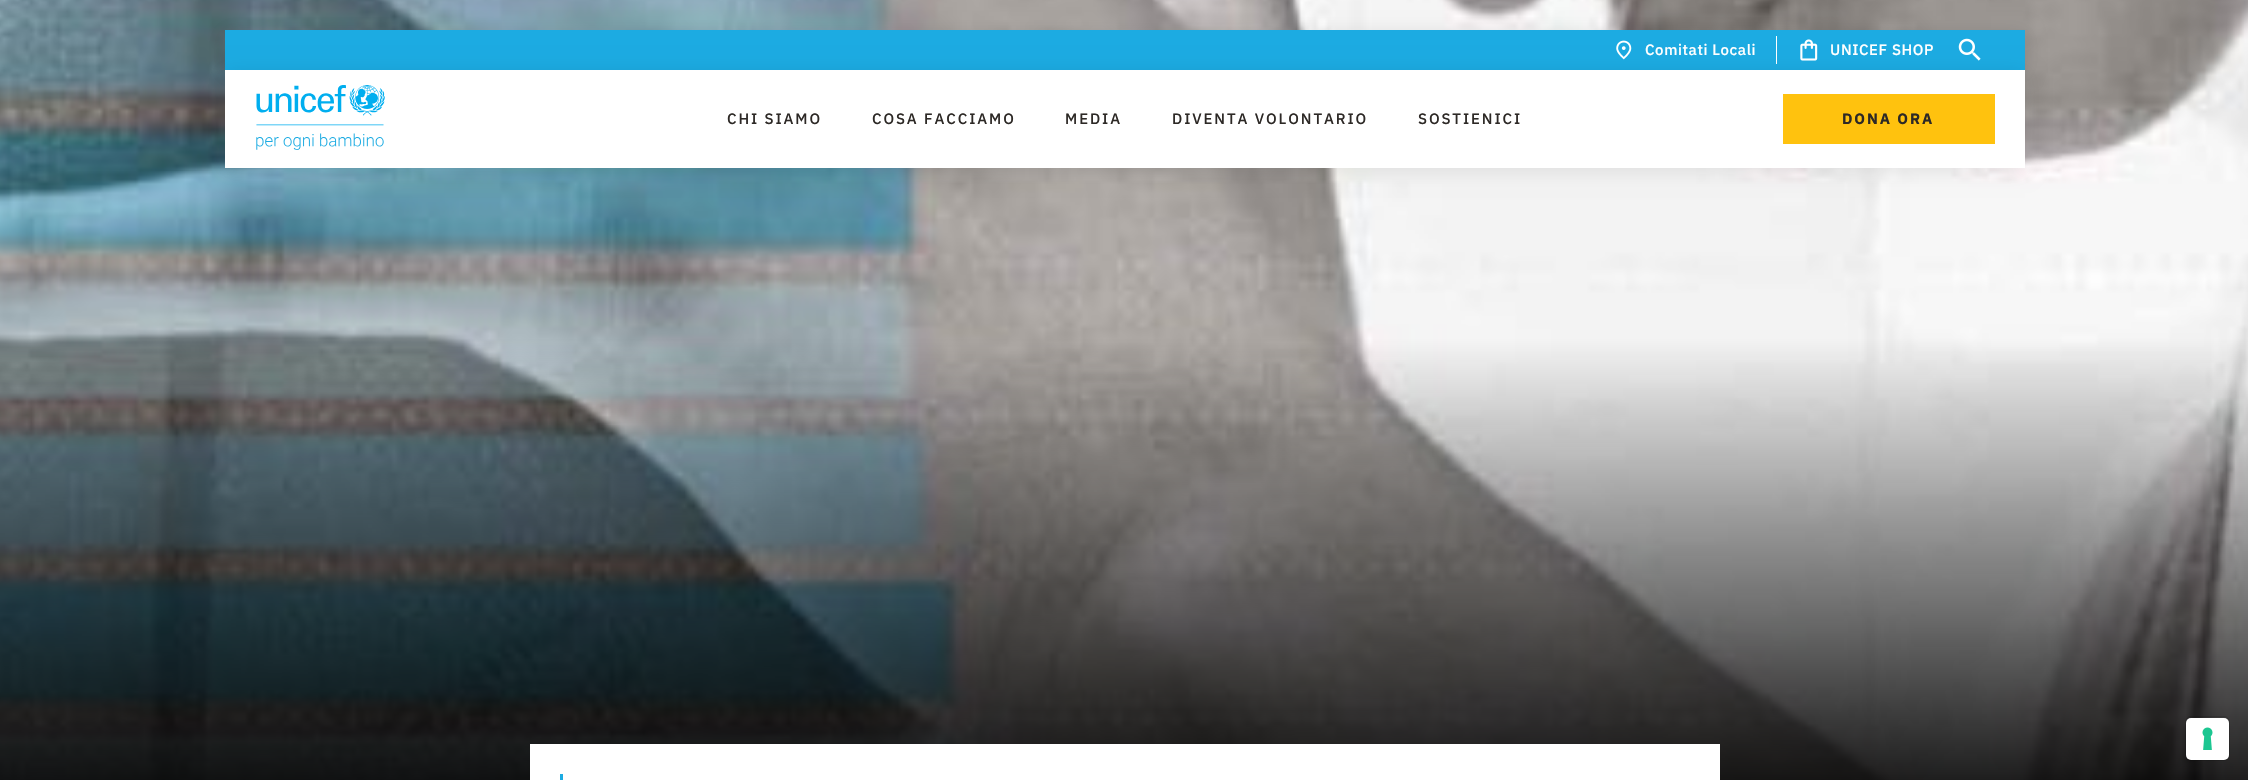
void draw(SkCanvas* canvas) {
	SkPaint paint;
	paint.setAntiAlias(true);
	auto spacedText = [&](const char* s, float x, float y, const SkFont& font, const SkPaint& ink, float letter, float word) {
		std::vector<SkGlyphID> glyphs(font.countText(s, strlen(s), SkTextEncoding::kUTF8));
		std::vector<float> xs(glyphs.size());
		font.textToGlyphs(s, strlen(s), SkTextEncoding::kUTF8, glyphs);
		font.getXPos(glyphs, xs, x);
		float extra = 0;
		for (size_t i = 0; i < glyphs.size(); i++) {
			xs[i] += extra;
			extra += letter + word * (glyphs[i] == font.unicharToGlyph(' '));
		}
		canvas->drawTextBlob(SkTextBlob::MakeFromPosHGlyphs(glyphs, xs, y, font), 0, 0, ink);
	};
	canvas->clear(0xffffffff);
	canvas->drawImageRect(SkImages::DeferredFromEncodedData(SkData::MakeFromFileName("img1.png")), SkRect::MakeXYWH(0, 0, 2248, 780), SkSamplingOptions());
	paint.setColor(0xffffffff);
	canvas->drawRect(SkRect::MakeXYWH(530, 744, 1190, 36), paint);
	paint.setColor(0xff1cabe2);
	canvas->drawRect(SkRect::MakeXYWH(560, 774, 3, 6), paint);
	paint.setColor(0x1a000000);
	paint.setMaskFilter(SkMaskFilter::MakeBlur(kNormal_SkBlurStyle, 9.5));
	canvas->drawRect(SkRect::MakeXYWH(225, 33, 1800, 40), paint);
	paint.setMaskFilter(nullptr);
	paint.setColor(0xff1cabe2);
	canvas->drawRect(SkRect::MakeXYWH(225, 30, 1800, 40), paint);
	paint.setColor(0xffffffff);
	canvas->drawRect(SkRect::MakeXYWH(1776, 36, 1, 28), paint);
	paint.setColor(0x1a000000);
	paint.setMaskFilter(SkMaskFilter::MakeBlur(kNormal_SkBlurStyle, 9.5));
	canvas->drawRect(SkRect::MakeXYWH(225, 73, 1800, 97), paint);
	paint.setMaskFilter(nullptr);
	canvas->drawImageRect(SkImages::DeferredFromEncodedData(SkData::MakeFromFileName("img2.png")), SkRect::MakeXYWH(1616, 40, 16, 20), SkSamplingOptions());
	SkFont f1(fontMgr->matchFamilyStyle("IBM Plex Sans", SkFontStyle(500, SkFontStyle::kNormal_Width, SkFontStyle::kUpright_Slant)), 15);
	f1.setSubpixel(true);
	paint.setColor(0xffffffff);
	spacedText("Comitati Locali", 1645, 55, f1, paint, 0.6, 0);
	canvas->drawImageRect(SkImages::DeferredFromEncodedData(SkData::MakeFromFileName("img3.png")), SkRect::MakeXYWH(1800, 39, 18, 22), SkSamplingOptions());
	spacedText("UNICEF SHOP", 1830, 55, f1, paint, 0.6, 0);
	canvas->drawImageRect(SkImages::DeferredFromEncodedData(SkData::MakeFromFileName("img4.png")), SkRect::MakeXYWH(1958, 38, 23, 23), SkSamplingOptions());
	canvas->drawRect(SkRect::MakeXYWH(225, 70, 1800, 98), paint);
	canvas->drawImageRect(SkImages::DeferredFromEncodedData(SkData::MakeFromFileName("img5.png")), SkRect::MakeXYWH(256, 85, 129, 65), SkSamplingOptions());
	paint.setColor(0xff2d2926);
	spacedText("CHI SIAMO", 727, 124, f1, paint, 1.9, 0);
	spacedText("COSA FACCIAMO", 872, 124, f1, paint, 1.9, 0);
	spacedText("MEDIA", 1065, 124, f1, paint, 1.9, 0);
	spacedText("DIVENTA VOLONTARIO", 1172, 124, f1, paint, 1.9, 0);
	spacedText("SOSTIENICI", 1418, 124, f1, paint, 1.9, 0);
	paint.setColor(0xffffc20e);
	canvas->drawRect(SkRect::MakeXYWH(1783, 94, 212, 50), paint);
	SkFont f2(fontMgr->matchFamilyStyle("IBM Plex Sans", SkFontStyle::Bold()), 15);
	f2.setSubpixel(true);
	paint.setColor(0xff2d2926);
	spacedText("DONA ORA", 1842, 124, f2, paint, 1.9, 0);
	paint.setStroke(true);
	paint.setStrokeWidth(1);
	paint.setColor(0x26000000);
	canvas->drawRoundRect(SkRect::MakeXYWH(2185.5, 716.5, 44, 44), 5.5, 5.5, paint);
	paint.setStroke(false);
	paint.setColor(0xffffffff);
	canvas->drawRoundRect(SkRect::MakeXYWH(2186, 718, 43, 42), 5, 5, paint);
	canvas->drawImageRect(SkImages::DeferredFromEncodedData(SkData::MakeFromFileName("img6.png")), SkRect::MakeXYWH(2202, 727, 11, 23), SkSamplingOptions());
}
